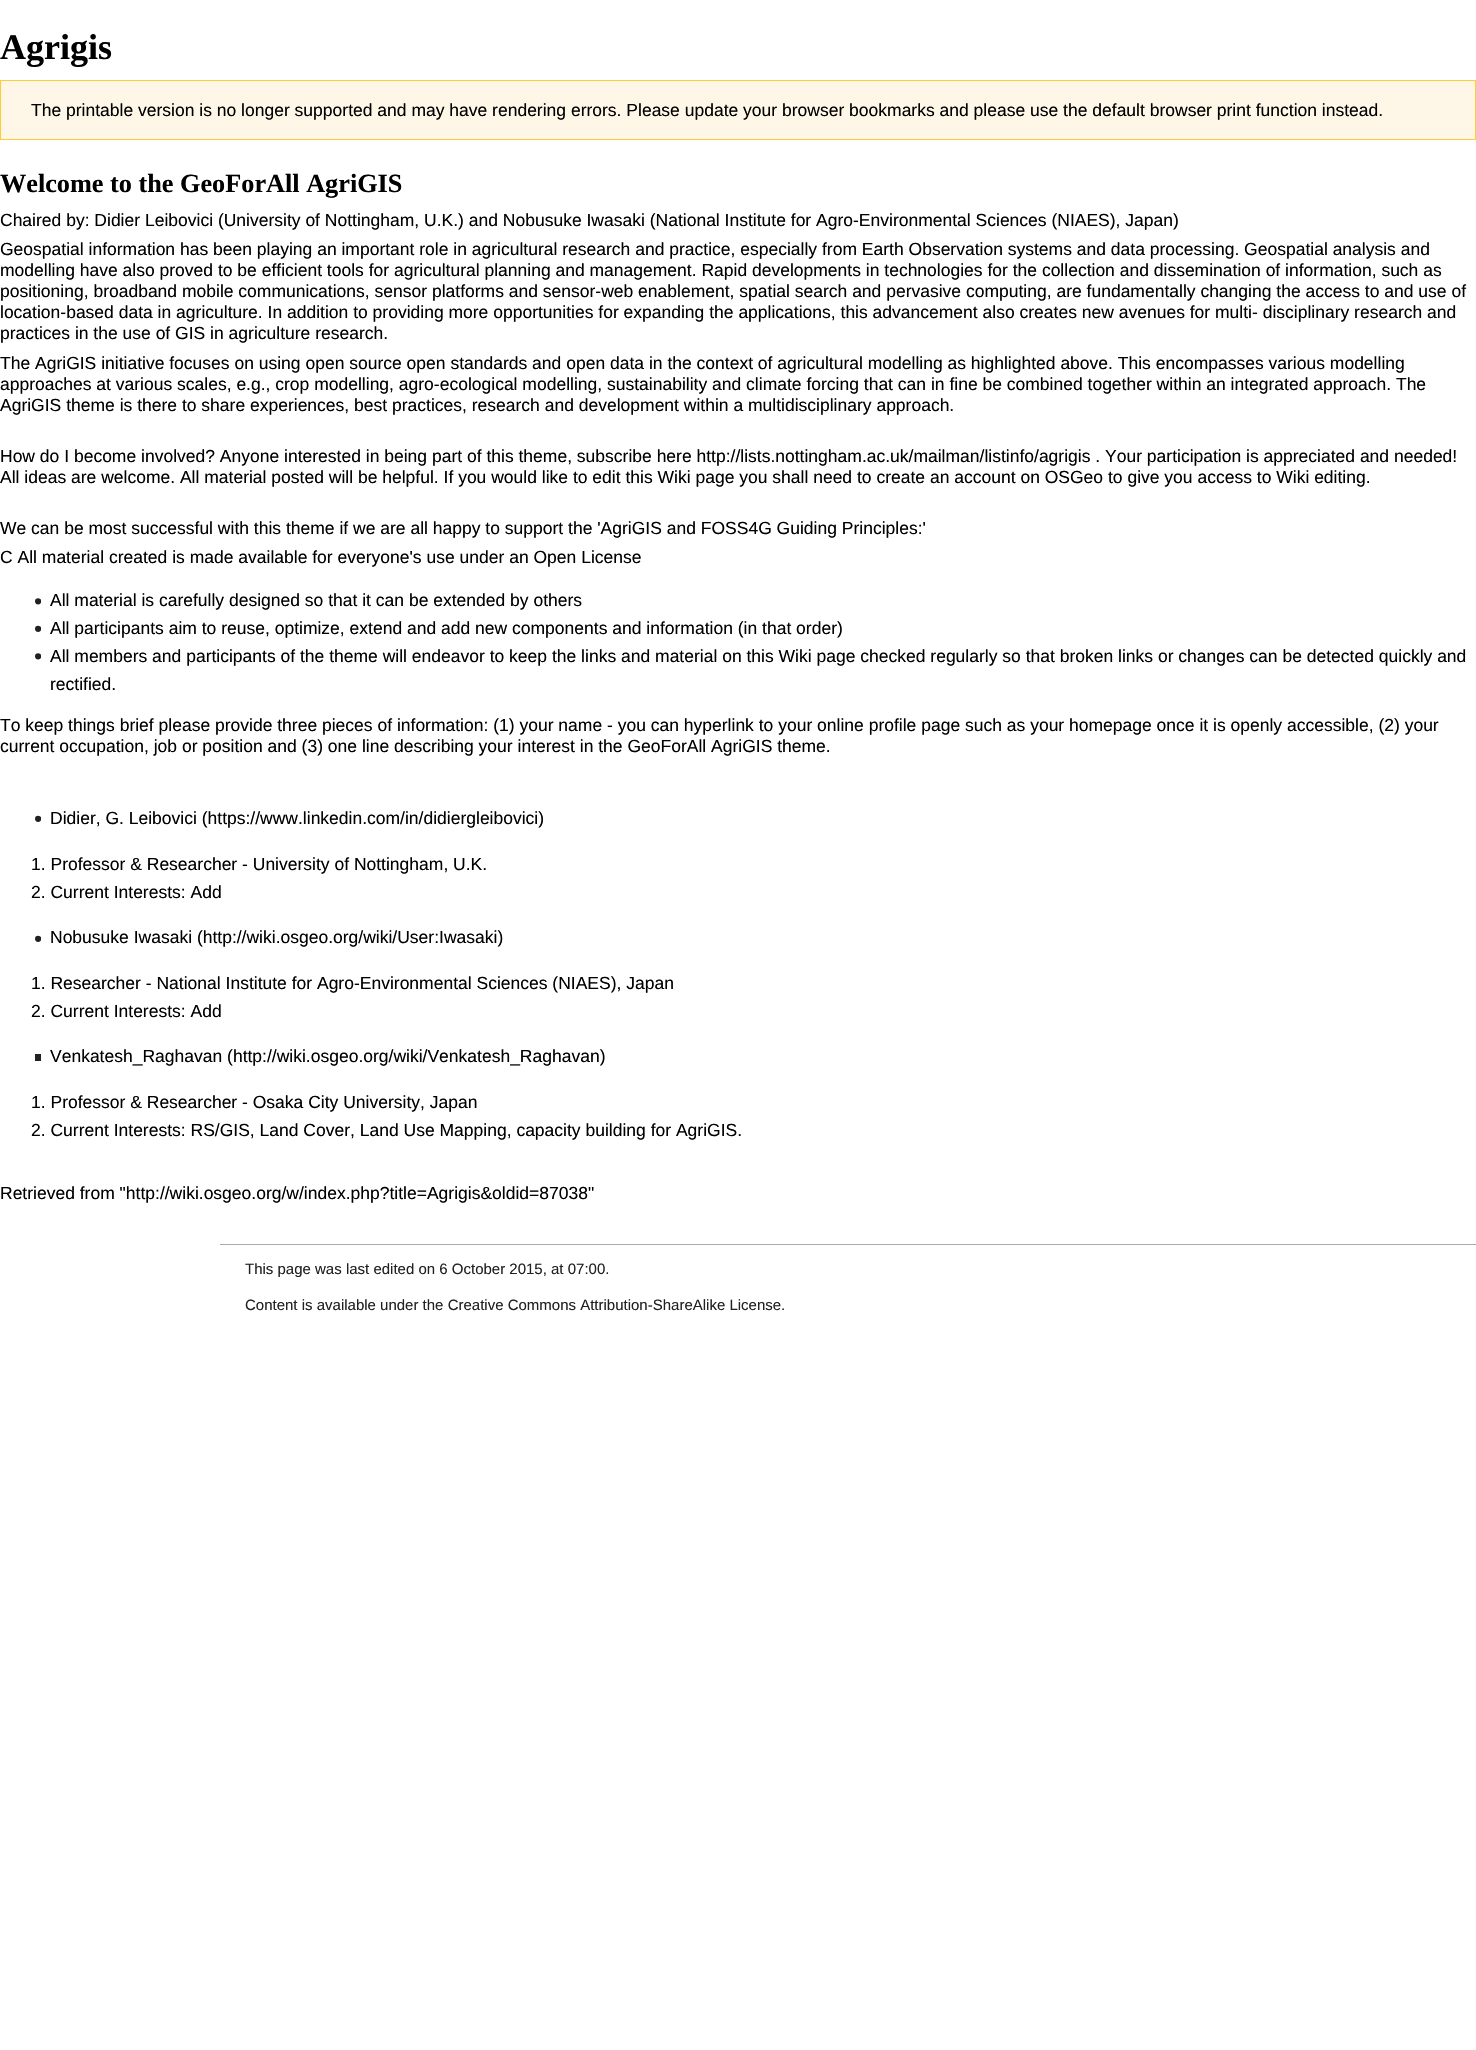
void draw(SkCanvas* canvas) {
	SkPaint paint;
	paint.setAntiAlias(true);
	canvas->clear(0xffffffff);
	SkFont f1(fontMgr->matchFamilyStyle("Liberation Serif", SkFontStyle::Bold()), 36);
	f1.setSubpixel(true);
	paint.setColor(0xff000000);
	canvas->drawString("Agrigis", 0, 59, f1, paint);
	paint.setColor(0xfffef6e7);
	canvas->drawRect(SkRect::MakeXYWH(0.5, 80.5, 1475, 59), paint);
	paint.setStroke(true);
	paint.setStrokeWidth(1);
	paint.setColor(0xffffcc33);
	canvas->drawRect(SkRect::MakeXYWH(0.5, 80.5, 1475, 59), paint);
	SkFont f2(fontMgr->matchFamilyStyle("Liberation Sans", SkFontStyle::Normal()), 17.5);
	f2.setSubpixel(true);
	paint.setStroke(false);
	paint.setColor(0xff000000);
	canvas->drawString("The printable version is no longer supported and may have rendering errors. Please update your browser bookmarks and please use the default browser print function instead.", 31, 116, f2, paint);
	SkFont f3(fontMgr->matchFamilyStyle("Liberation Serif", SkFontStyle::Bold()), 26.25);
	f3.setSubpixel(true);
	canvas->drawString("Welcome to the GeoForAll AgriGIS", 0, 192, f3, paint);
	canvas->drawString("Chaired by: Didier Leibovici (University of Nottingham, U.K.) and Nobusuke Iwasaki (National Institute for Agro-Environmental Sciences (NIAES), Japan)", 0, 226, f2, paint);
	canvas->drawString("Geospatial information has been playing an important role in agricultural research and practice, especially from Earth Observation systems and data processing. Geospatial analysis and", 0, 255, f2, paint);
	canvas->drawString("modelling have also proved to be efficient tools for agricultural planning and management. Rapid developments in technologies for the collection and dissemination of information, such as", 0, 276, f2, paint);
	canvas->drawString("positioning, broadband mobile communications, sensor platforms and sensor‐web enablement, spatial search and pervasive computing, are fundamentally changing the access to and use of", 0, 297, f2, paint);
	canvas->drawString("location‐based data in agriculture. In addition to providing more opportunities for expanding the applications, this advancement also creates new avenues for multi‐ disciplinary research and", 0, 318, f2, paint);
	canvas->drawString("practices in the use of GIS in agriculture research.", 0, 339, f2, paint);
	canvas->drawString("The AgriGIS initiative focuses on using open source open standards and open data in the context of agricultural modelling as highlighted above. This encompasses various modelling", 0, 369, f2, paint);
	canvas->drawString("approaches at various scales, e.g., crop modelling, agro-ecological modelling, sustainability and climate forcing that can in fine be combined together within an integrated approach. The", 0, 390, f2, paint);
	canvas->drawString("AgriGIS theme is there to share experiences, best practices, research and development within a multidisciplinary approach.", 0, 411, f2, paint);
	canvas->drawString("How do I become involved? Anyone interested in being part of this theme, subscribe here http://lists.nottingham.ac.uk/mailman/listinfo/agrigis . Your participation is appreciated and needed!", 0, 462, f2, paint);
	canvas->drawString("All ideas are welcome. All material posted will be helpful. If you would like to edit this Wiki page you shall need to create an account on OSGeo to give you access to Wiki editing.", 0, 483, f2, paint);
	canvas->drawString("We can be most successful with this theme if we are all happy to support the 'AgriGIS and FOSS4G Guiding Principles:'", 0, 534, f2, paint);
	canvas->drawString("C All material created is made available for everyone's use under an Open License", 0, 563, f2, paint);
	canvas->drawImageRect(SkImages::DeferredFromEncodedData(SkData::MakeFromFileName("img1.png")), SkRect::MakeXYWH(35, 598, 6, 7), SkSamplingOptions());
	canvas->drawString("All material is carefully designed so that it can be extended by others", 50, 606, f2, paint);
	canvas->drawImageRect(SkImages::DeferredFromEncodedData(SkData::MakeFromFileName("img2.png")), SkRect::MakeXYWH(35, 625, 6, 7), SkSamplingOptions());
	canvas->drawString("All participants aim to reuse, optimize, extend and add new components and information (in that order)", 50, 634, f2, paint);
	canvas->drawImageRect(SkImages::DeferredFromEncodedData(SkData::MakeFromFileName("img1.png")), SkRect::MakeXYWH(35, 653, 6, 7), SkSamplingOptions());
	canvas->drawString("All members and participants of the theme will endeavor to keep the links and material on this Wiki page checked regularly so that broken links or changes can be detected quickly and", 50, 662, f2, paint);
	canvas->drawString("rectified.", 50, 690, f2, paint);
	canvas->drawString("To keep things brief please provide three pieces of information: (1) your name - you can hyperlink to your online profile page such as your homepage once it is openly accessible, (2) your", 0, 731, f2, paint);
	canvas->drawString("current occupation, job or position and (3) one line describing your interest in the GeoForAll AgriGIS theme.", 0, 752, f2, paint);
	canvas->drawImageRect(SkImages::DeferredFromEncodedData(SkData::MakeFromFileName("img2.png")), SkRect::MakeXYWH(35, 815, 6, 7), SkSamplingOptions());
	canvas->drawString("Didier, G. Leibovici (https://www.linkedin.com/in/didiergleibovici)", 50, 824, f2, paint);
	canvas->drawString("1. Professor & Researcher - University of Nottingham, U.K.", 31, 870, f2, paint);
	canvas->drawString("2. Current Interests: Add", 31, 898, f2, paint);
	canvas->drawImageRect(SkImages::DeferredFromEncodedData(SkData::MakeFromFileName("img2.png")), SkRect::MakeXYWH(35, 935, 6, 7), SkSamplingOptions());
	canvas->drawString("Nobusuke Iwasaki (http://wiki.osgeo.org/wiki/User:Iwasaki)", 50, 943, f2, paint);
	canvas->drawString("1. Researcher - National Institute for Agro-Environmental Sciences (NIAES), Japan", 31, 989, f2, paint);
	canvas->drawString("2. Current Interests: Add", 31, 1017, f2, paint);
	paint.setColor(0xff202122);
	canvas->drawRect(SkRect::MakeXYWH(35, 1054, 6, 7), paint);
	paint.setColor(0xff000000);
	canvas->drawString("Venkatesh_Raghavan (http://wiki.osgeo.org/wiki/Venkatesh_Raghavan)", 50, 1062, f2, paint);
	canvas->drawString("1. Professor & Researcher - Osaka City University, Japan", 31, 1108, f2, paint);
	canvas->drawString("2. Current Interests: RS/GIS, Land Cover, Land Use Mapping, capacity building for AgriGIS.", 31, 1136, f2, paint);
	canvas->drawString("Retrieved from \"http://wiki.osgeo.org/w/index.php?title=Agrigis&oldid=87038\"", 0, 1199, f2, paint);
	paint.setColor(0xffaaaaaa);
	canvas->drawRect(SkRect::MakeXYWH(220, 1244, 1256, 1), paint);
	SkFont f4(fontMgr->matchFamilyStyle("Liberation Sans", SkFontStyle::Normal()), 15);
	f4.setSubpixel(true);
	paint.setColor(0xff202122);
	canvas->drawString("This page was last edited on 6 October 2015, at 07:00.", 245, 1274, f4, paint);
	canvas->drawString("Content is available under the Creative Commons Attribution-ShareAlike License.", 245, 1310, f4, paint);
}
